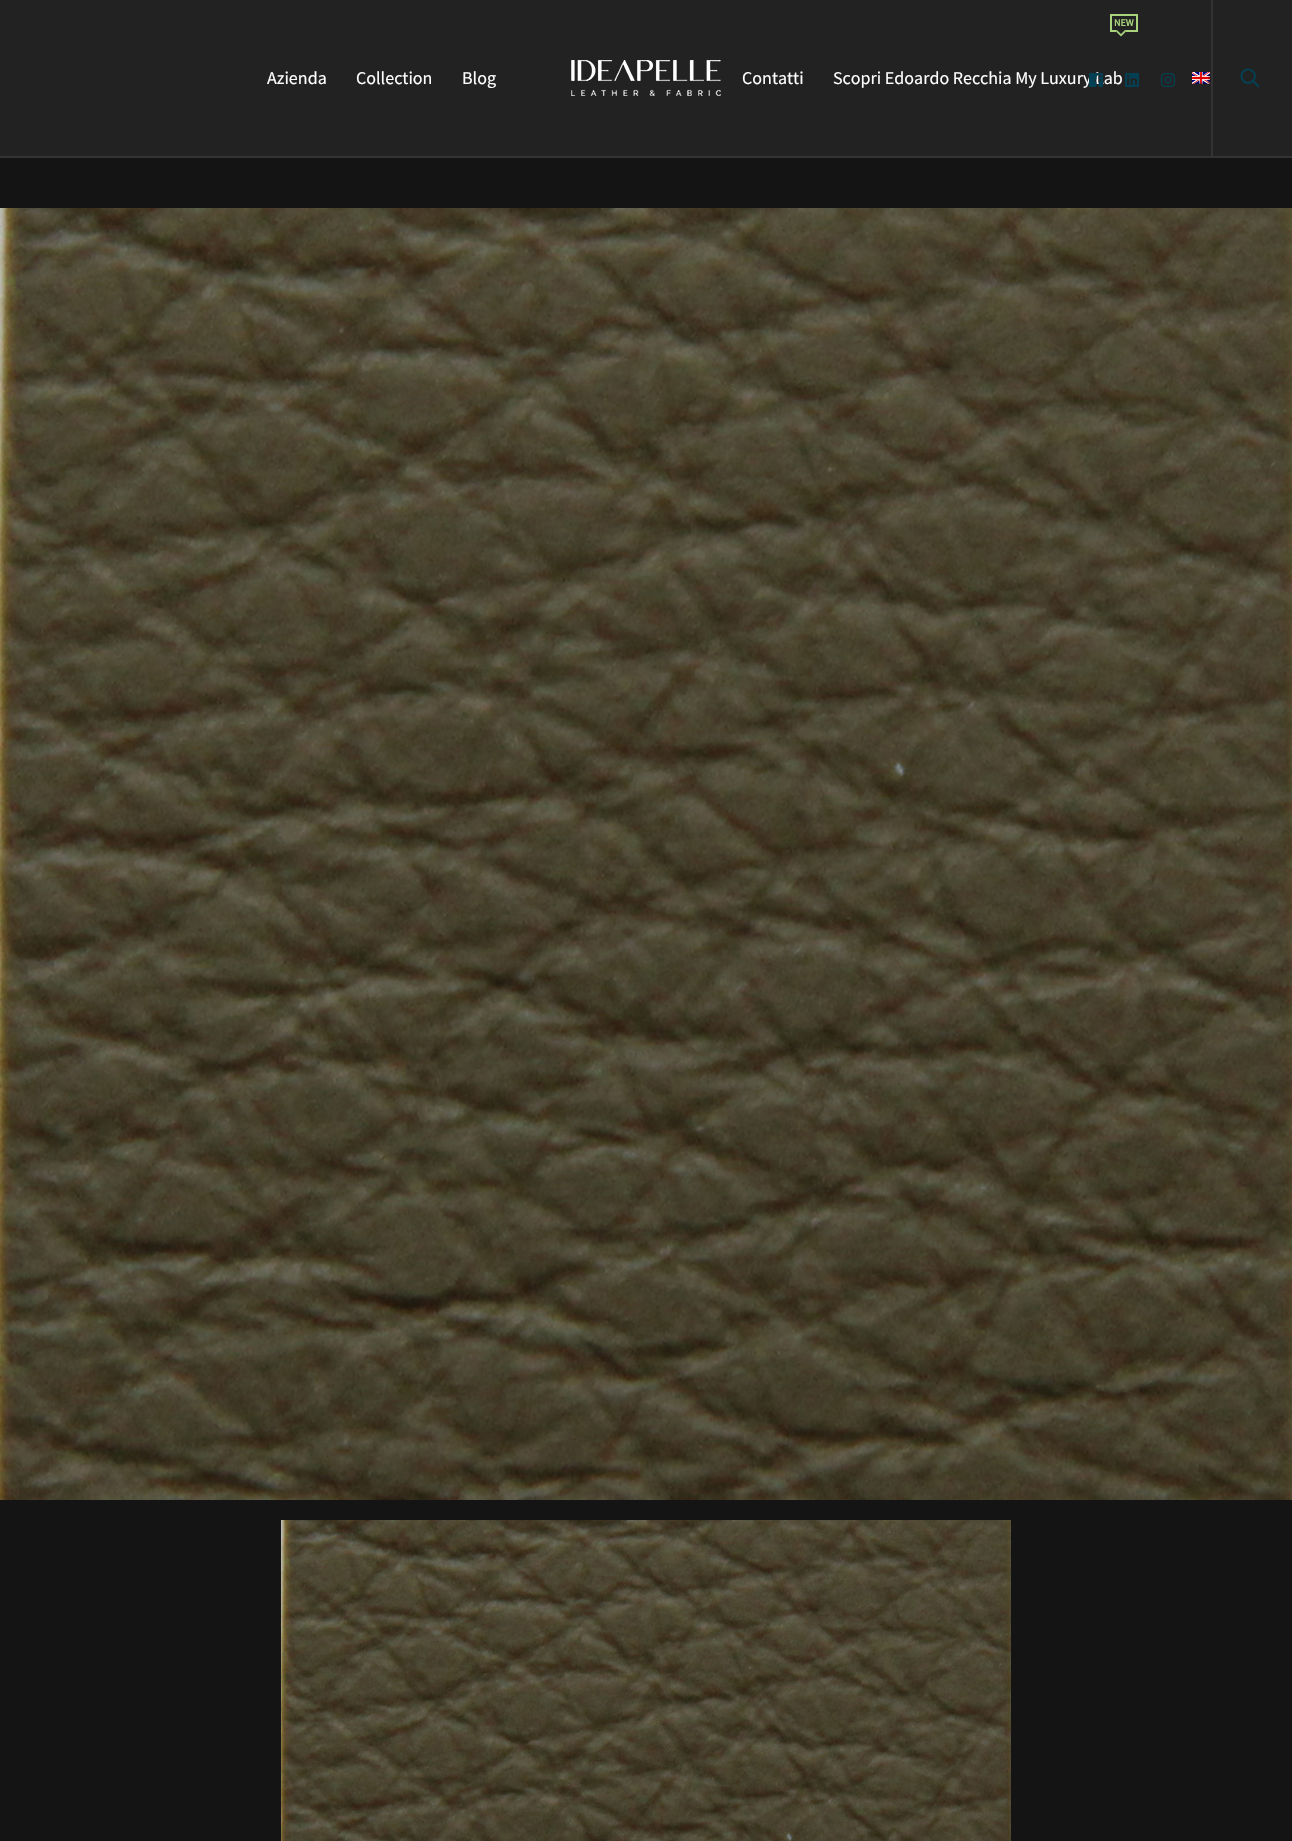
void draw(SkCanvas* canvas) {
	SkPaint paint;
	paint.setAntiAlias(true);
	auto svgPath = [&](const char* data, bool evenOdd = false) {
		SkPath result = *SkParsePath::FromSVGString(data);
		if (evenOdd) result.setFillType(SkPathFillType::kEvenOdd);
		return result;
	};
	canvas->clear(0xff222222);
	paint.setColor(0xff333333);
	canvas->drawRect(SkRect::MakeXYWH(0, 156, 1292, 2), paint);
	SkFont f1(fontMgr->matchFamilyStyle("Source Sans Pro", SkFontStyle::Normal()), 18);
	f1.setSubpixel(true);
	paint.setColor(0xffffffff);
	canvas->drawString("Azienda", 267, 84, f1, paint);
	canvas->drawString("Collection", 356, 84, f1, paint);
	canvas->drawString("Blog", 462, 84, f1, paint);
	canvas->drawString("Contatti", 742, 84, f1, paint);
	paint.setStroke(true);
	paint.setStrokeWidth(2);
	paint.setColor(0xffa9d37c);
	canvas->drawRect(SkRect::MakeXYWH(1111, 15, 26, 16), paint);
	SkFont f2(fontMgr->matchFamilyStyle("Source Sans Pro", SkFontStyle::Bold()), 10);
	f2.setSubpixel(true);
	paint.setStroke(false);
	canvas->drawString("NEW", 1114, 26, f2, paint);
	paint.setColor(0xff222222);
	canvas->drawPath(svgPath("M1121 36.5L1116 31.5L1121 26.5L1126 31.5Z"), paint);
	paint.setColor(0xffa9d37c);
	canvas->drawPath(svgPath("M1121 34L1125 30L1126 31.5L1121 36.5L1116 31.5L1117.5 30.5Z"), paint);
	paint.setColor(0xffffffff);
	canvas->drawString("Scopri Edoardo Recchia My Luxury Lab", 833, 84, f1, paint);
	canvas->drawImageRect(SkImages::DeferredFromEncodedData(SkData::MakeFromFileName("img1.png")), SkRect::MakeXYWH(1192, 72, 18, 12), SkSamplingOptions());
	canvas->drawImageRect(SkImages::DeferredFromEncodedData(SkData::MakeFromFileName("img2.png")), SkRect::MakeXYWH(1089, 73, 14, 14), SkSamplingOptions());
	canvas->drawImageRect(SkImages::DeferredFromEncodedData(SkData::MakeFromFileName("img3.png")), SkRect::MakeXYWH(1125, 73, 14, 14), SkSamplingOptions());
	canvas->drawImageRect(SkImages::DeferredFromEncodedData(SkData::MakeFromFileName("img4.png")), SkRect::MakeXYWH(1161, 73, 14, 14), SkSamplingOptions());
	paint.setColor(0xff333333);
	canvas->drawRect(SkRect::MakeXYWH(1211, 0, 2, 156), paint);
	canvas->drawImageRect(SkImages::DeferredFromEncodedData(SkData::MakeFromFileName("img5.png")), SkRect::MakeXYWH(1240, 68, 20, 20), SkSamplingOptions());
	canvas->drawImageRect(SkImages::DeferredFromEncodedData(SkData::MakeFromFileName("img6.png")), SkRect::MakeXYWH(571, 60, 150, 36), SkSamplingOptions());
	paint.setColor(0xff141414);
	canvas->drawRect(SkRect::MakeXYWH(0, 158, 1292, 1683), paint);
	canvas->drawImageRect(SkImages::DeferredFromEncodedData(SkData::MakeFromFileName("img7.png")), SkRect::MakeXYWH(0, 208, 1292, 1292), SkSamplingOptions());
	canvas->drawImageRect(SkImages::DeferredFromEncodedData(SkData::MakeFromFileName("img8.png")), SkRect::MakeXYWH(281, 1520, 730, 321), SkSamplingOptions());
}
